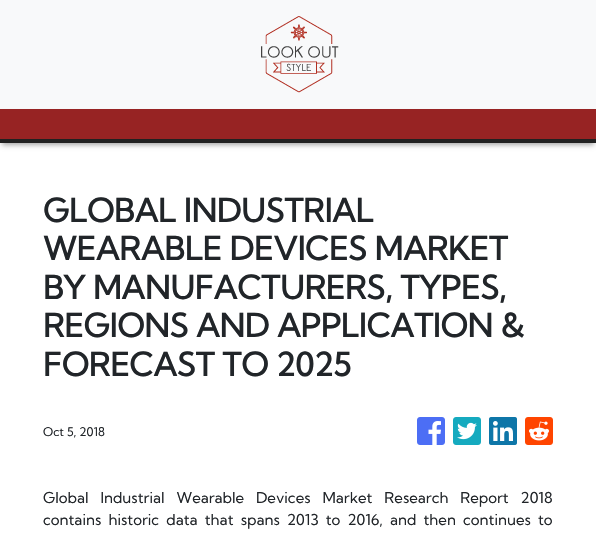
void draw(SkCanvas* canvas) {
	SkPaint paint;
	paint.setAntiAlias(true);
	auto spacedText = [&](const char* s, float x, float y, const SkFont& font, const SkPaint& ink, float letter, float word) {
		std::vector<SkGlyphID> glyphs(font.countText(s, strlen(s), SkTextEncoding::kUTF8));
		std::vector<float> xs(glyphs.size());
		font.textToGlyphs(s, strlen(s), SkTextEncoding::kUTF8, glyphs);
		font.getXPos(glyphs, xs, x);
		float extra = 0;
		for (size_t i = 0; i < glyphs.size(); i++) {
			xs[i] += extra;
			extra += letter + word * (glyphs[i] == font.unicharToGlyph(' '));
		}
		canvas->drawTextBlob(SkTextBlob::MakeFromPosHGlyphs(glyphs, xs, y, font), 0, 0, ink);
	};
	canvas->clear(0xffffffff);
	paint.setColor(0xfff8f9fa);
	canvas->drawRect(SkRect::MakeXYWH(0, 0, 596, 109), paint);
	canvas->drawImageRect(SkImages::DeferredFromEncodedData(SkData::MakeFromFileName("img1.png")), SkRect::MakeXYWH(261, 16, 78, 77), SkSamplingOptions());
	paint.setColor(0x59000000);
	paint.setMaskFilter(SkMaskFilter::MakeBlur(kNormal_SkBlurStyle, 2.5));
	canvas->drawRect(SkRect::MakeXYWH(2, 115, 592, 30), paint);
	paint.setMaskFilter(nullptr);
	paint.setColor(0xff972323);
	canvas->drawRect(SkRect::MakeXYWH(0, 109, 596, 30), paint);
	paint.setColor(0xff212121);
	canvas->drawRect(SkRect::MakeXYWH(0, 139, 596, 4), paint);
	SkFont f1(fontMgr->matchFamilyStyle("Kumbh Sans", SkFontStyle::Bold()), 32);
	f1.setSubpixel(true);
	paint.setColor(0xff212529);
	canvas->drawString("GLOBAL INDUSTRIAL", 43, 222, f1, paint);
	canvas->drawString("WEARABLE DEVICES MARKET", 43, 260, f1, paint);
	canvas->drawString("BY MANUFACTURERS, TYPES,", 43, 299, f1, paint);
	canvas->drawString("REGIONS AND APPLICATION &", 43, 337, f1, paint);
	canvas->drawString("FORECAST TO 2025", 43, 376, f1, paint);
	SkFont f2(fontMgr->matchFamilyStyle("Kumbh Sans", SkFontStyle::Normal()), 12);
	f2.setSubpixel(true);
	canvas->drawString("Oct 5, 2018", 43, 436, f2, paint);
	canvas->drawImageRect(SkImages::DeferredFromEncodedData(SkData::MakeFromFileName("img2.png")), SkRect::MakeXYWH(417, 417, 28, 28), SkSamplingOptions());
	canvas->drawImageRect(SkImages::DeferredFromEncodedData(SkData::MakeFromFileName("img3.png")), SkRect::MakeXYWH(453, 417, 28, 28), SkSamplingOptions());
	canvas->drawImageRect(SkImages::DeferredFromEncodedData(SkData::MakeFromFileName("img4.png")), SkRect::MakeXYWH(489, 417, 28, 28), SkSamplingOptions());
	canvas->drawImageRect(SkImages::DeferredFromEncodedData(SkData::MakeFromFileName("img5.png")), SkRect::MakeXYWH(525, 417, 28, 28), SkSamplingOptions());
	SkFont f3(fontMgr->matchFamilyStyle("Kumbh Sans", SkFontStyle::Normal()), 15);
	f3.setSubpixel(true);
	spacedText("Global Industrial Wearable Devices Market Research Report 2018", 43, 503, f3, paint, 0, 8.25);
	spacedText("contains historic data that spans 2013 to 2016, and then continues to", 43, 525, f3, paint, 0, 3.5);
}
